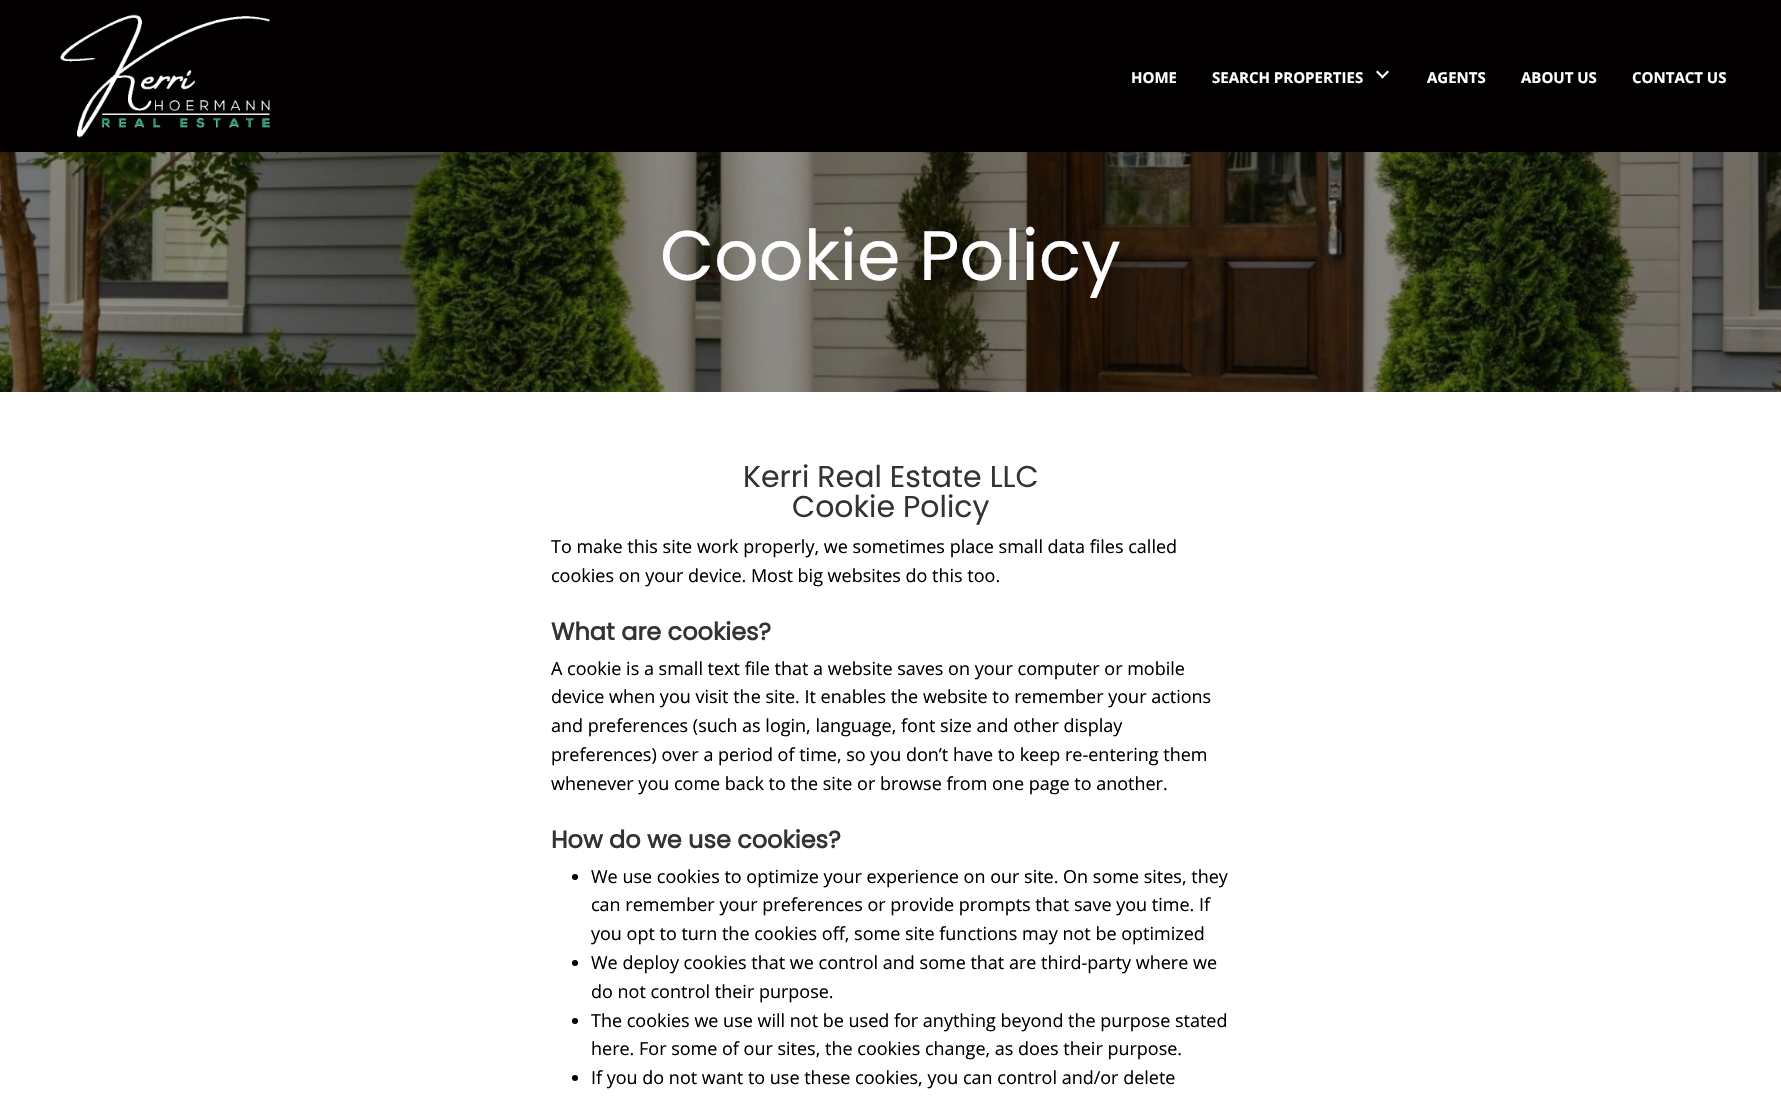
void draw(SkCanvas* canvas) {
	SkPaint paint;
	paint.setAntiAlias(true);
	auto svgPath = [&](const char* data, bool evenOdd = false) {
		SkPath result = *SkParsePath::FromSVGString(data);
		if (evenOdd) result.setFillType(SkPathFillType::kEvenOdd);
		return result;
	};
	canvas->clear(0xffffffff);
	paint.setColor(0xff020000);
	canvas->drawRect(SkRect::MakeXYWH(0, 0, 1781, 152), paint);
	canvas->drawImageRect(SkImages::DeferredFromEncodedData(SkData::MakeFromFileName("img1.png")), SkRect::MakeXYWH(60, 14, 210, 124), SkSamplingOptions());
	SkFont f1(fontMgr->matchFamilyStyle("Open Sans", SkFontStyle::Bold()), 15);
	f1.setSubpixel(true);
	paint.setColor(0xffffffff);
	canvas->drawString("HOME", 1131, 83, f1, paint);
	canvas->drawString("SEARCH PROPERTIES", 1212, 83, f1, paint);
	canvas->drawPath(svgPath("M1387.5 70.5L1389 72L1382.5 78.5L1381 77Z"), paint);
	canvas->drawPath(svgPath("M1377.5 70.5L1384 77L1382.5 78.5L1376 72Z"), paint);
	canvas->drawString("AGENTS", 1427, 83, f1, paint);
	canvas->drawString("ABOUT US", 1521, 83, f1, paint);
	canvas->drawString("CONTACT US", 1632, 83, f1, paint);
	canvas->drawImageRect(SkImages::DeferredFromEncodedData(SkData::MakeFromFileName("img2.png")), SkRect::MakeXYWH(0, 152, 1781, 240), SkSamplingOptions());
	SkFont f2(fontMgr->matchFamilyStyle("Poppins", SkFontStyle::Normal()), 70);
	f2.setSubpixel(true);
	canvas->drawString("Cookie Policy", 660, 280, f2, paint);
	SkFont f3(fontMgr->matchFamilyStyle("Poppins", SkFontStyle::Normal()), 30);
	f3.setSubpixel(true);
	paint.setColor(0xff333333);
	canvas->drawString("Kerri Real Estate LLC", 743, 487, f3, paint);
	canvas->drawString("Cookie Policy", 792, 517, f3, paint);
	SkFont f4(fontMgr->matchFamilyStyle("Open Sans", SkFontStyle::Normal()), 18);
	f4.setSubpixel(true);
	paint.setColor(0xff000000);
	canvas->drawString("To make this site work properly, we sometimes place small data files called", 551, 553, f4, paint);
	canvas->drawString("cookies on your device. Most big websites do this too.", 551, 582, f4, paint);
	SkFont f5(fontMgr->matchFamilyStyle("Poppins", SkFontStyle::Bold()), 24);
	f5.setSubpixel(true);
	paint.setColor(0xff333333);
	canvas->drawString("What are cookies?", 551, 640, f5, paint);
	paint.setColor(0xff000000);
	canvas->drawString("A cookie is a small text file that a website saves on your computer or mobile", 551, 675, f4, paint);
	canvas->drawString("device when you visit the site. It enables the website to remember your actions", 551, 703, f4, paint);
	canvas->drawString("and preferences (such as login, language, font size and other display", 551, 732, f4, paint);
	canvas->drawString("preferences) over a period of time, so you don’t have to keep re-entering them", 551, 761, f4, paint);
	canvas->drawString("whenever you come back to the site or browse from one page to another.", 551, 790, f4, paint);
	paint.setColor(0xff333333);
	canvas->drawString("How do we use cookies?", 551, 848, f5, paint);
	paint.setColor(0xff000000);
	canvas->drawCircle(575, 877, 3, paint);
	canvas->drawString("We use cookies to optimize your experience on our site. On some sites, they", 591, 883, f4, paint);
	canvas->drawString("can remember your preferences or provide prompts that save you time. If", 591, 911, f4, paint);
	canvas->drawString("you opt to turn the cookies off, some site functions may not be optimized", 591, 940, f4, paint);
	canvas->drawCircle(575, 963, 3, paint);
	canvas->drawString("We deploy cookies that we control and some that are third-party where we", 591, 969, f4, paint);
	canvas->drawString("do not control their purpose.", 591, 998, f4, paint);
	canvas->drawCircle(575, 1021, 3, paint);
	canvas->drawString("The cookies we use will not be used for anything beyond the purpose stated", 591, 1027, f4, paint);
	canvas->drawString("here. For some of our sites, the cookies change, as does their purpose.", 591, 1055, f4, paint);
	canvas->drawCircle(575, 1078, 3, paint);
	canvas->drawString("If you do not want to use these cookies, you can control and/or delete", 591, 1084, f4, paint);
}
